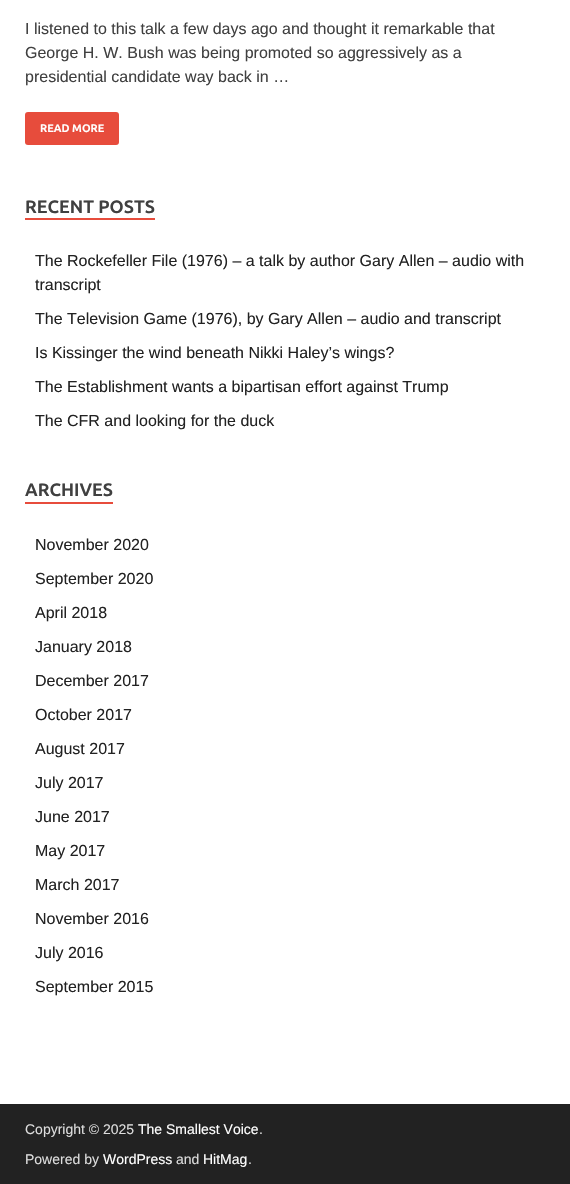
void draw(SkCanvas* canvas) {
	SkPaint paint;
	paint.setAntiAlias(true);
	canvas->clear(0xffffffff);
	SkFont f1(fontMgr->matchFamilyStyle("Liberation Sans", SkFontStyle::Normal()), 16);
	f1.setSubpixel(true);
	paint.setColor(0xff404040);
	canvas->drawString("I listened to this talk a few days ago and thought it remarkable that", 25, 34, f1, paint);
	canvas->drawString("George H. W. Bush was being promoted so aggressively as a", 25, 58, f1, paint);
	canvas->drawString("presidential candidate way back in …", 25, 82, f1, paint);
	paint.setColor(0xffe74c3c);
	canvas->drawRoundRect(SkRect::MakeXYWH(25, 112, 94, 33), 3, 3, paint);
	SkFont f2(fontMgr->matchFamilyStyle("Ubuntu", SkFontStyle::Bold()), 11);
	f2.setSubpixel(true);
	paint.setColor(0xffffffff);
	canvas->drawString("READ MORE", 40, 132, f2, paint);
	paint.setColor(0xffe74c3c);
	canvas->drawRect(SkRect::MakeXYWH(25, 218, 130, 2), paint);
	SkFont f3(fontMgr->matchFamilyStyle("Ubuntu", SkFontStyle::Bold()), 18);
	f3.setSubpixel(true);
	paint.setColor(0xff404040);
	canvas->drawString("RECENT POSTS", 25, 213, f3, paint);
	paint.setColor(0xff222222);
	canvas->drawString("The Rockefeller File (1976) – a talk by author Gary Allen – audio with", 35, 266, f1, paint);
	canvas->drawString("transcript", 35, 290, f1, paint);
	canvas->drawString("The Television Game (1976), by Gary Allen – audio and transcript", 35, 324, f1, paint);
	canvas->drawString("Is Kissinger the wind beneath Nikki Haley’s wings?", 35, 358, f1, paint);
	canvas->drawString("The Establishment wants a bipartisan effort against Trump", 35, 392, f1, paint);
	canvas->drawString("The CFR and looking for the duck", 35, 426, f1, paint);
	paint.setColor(0xffe74c3c);
	canvas->drawRect(SkRect::MakeXYWH(25, 502, 88, 2), paint);
	paint.setColor(0xff404040);
	canvas->drawString("ARCHIVES", 25, 496, f3, paint);
	paint.setColor(0xff222222);
	canvas->drawString("November 2020", 35, 550, f1, paint);
	canvas->drawString("September 2020", 35, 584, f1, paint);
	canvas->drawString("April 2018", 35, 618, f1, paint);
	canvas->drawString("January 2018", 35, 652, f1, paint);
	canvas->drawString("December 2017", 35, 686, f1, paint);
	canvas->drawString("October 2017", 35, 720, f1, paint);
	canvas->drawString("August 2017", 35, 754, f1, paint);
	canvas->drawString("July 2017", 35, 788, f1, paint);
	canvas->drawString("June 2017", 35, 822, f1, paint);
	canvas->drawString("May 2017", 35, 856, f1, paint);
	canvas->drawString("March 2017", 35, 890, f1, paint);
	canvas->drawString("November 2016", 35, 924, f1, paint);
	canvas->drawString("July 2016", 35, 958, f1, paint);
	canvas->drawString("September 2015", 35, 992, f1, paint);
	canvas->drawRect(SkRect::MakeXYWH(0, 1104, 570, 80), paint);
	SkFont f4(fontMgr->matchFamilyStyle("Liberation Sans", SkFontStyle::Normal()), 14);
	f4.setSubpixel(true);
	paint.setColor(0xffdddddd);
	canvas->drawString("Copyright © 2025", 25, 1134, f4, paint);
	paint.setColor(0xffffffff);
	canvas->drawString("The Smallest Voice", 138, 1134, f4, paint);
	paint.setColor(0xffdddddd);
	canvas->drawString(".", 259, 1134, f4, paint);
	canvas->drawString("Powered by", 25, 1164, f4, paint);
	paint.setColor(0xffffffff);
	canvas->drawString("WordPress", 103, 1164, f4, paint);
	paint.setColor(0xffdddddd);
	canvas->drawString("and", 176, 1164, f4, paint);
	paint.setColor(0xffffffff);
	canvas->drawString("HitMag", 203, 1164, f4, paint);
	paint.setColor(0xffdddddd);
	canvas->drawString(".", 248, 1164, f4, paint);
}
